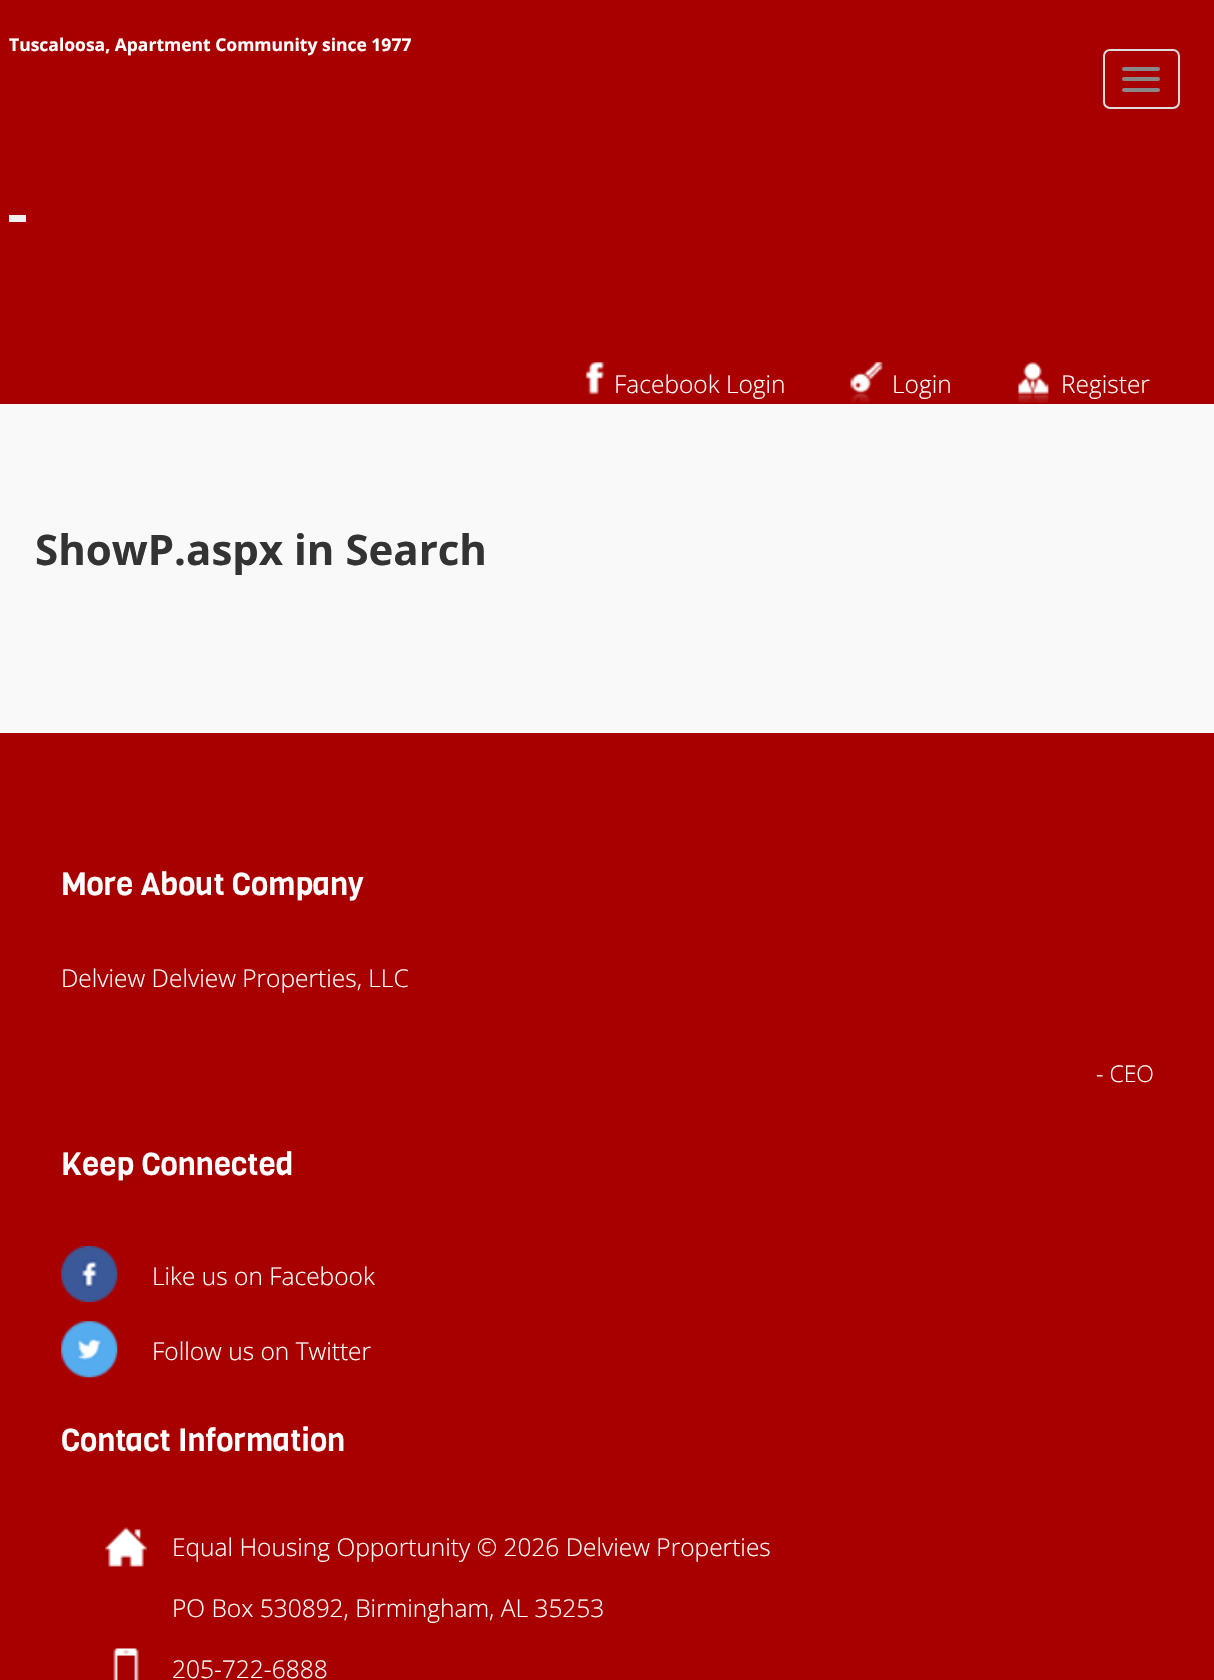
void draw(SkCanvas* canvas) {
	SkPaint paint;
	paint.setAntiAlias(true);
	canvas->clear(0xfff9f9f9);
	paint.setColor(0xffa80000);
	canvas->drawRect(SkRect::MakeXYWH(0, 0, 1214, 404), paint);
	SkFont f1(fontMgr->matchFamilyStyle("Open Sans", SkFontStyle::Bold()), 17.5);
	f1.setSubpixel(true);
	paint.setColor(0xffffffff);
	canvas->drawString("Tuscaloosa, Apartment Community since 1977", 9, 51, f1, paint);
	paint.setStroke(true);
	paint.setStrokeWidth(2);
	paint.setColor(0xffdddddd);
	canvas->drawRoundRect(SkRect::MakeXYWH(1104, 50, 75, 58), 6, 6, paint);
	paint.setStroke(false);
	paint.setColor(0xff888888);
	canvas->drawRoundRect(SkRect::MakeXYWH(1122, 67, 38, 4), 2, 2, paint);
	canvas->drawRoundRect(SkRect::MakeXYWH(1122, 77, 38, 4), 2, 2, paint);
	canvas->drawRoundRect(SkRect::MakeXYWH(1122, 88, 38, 4), 2, 2, paint);
	paint.setColor(0xfff0f0f0);
	canvas->drawRect(SkRect::MakeXYWH(9, 215, 17, 7), paint);
	canvas->drawImageRect(SkImages::DeferredFromEncodedData(SkData::MakeFromFileName("img1.png")), SkRect::MakeXYWH(585, 362, 20, 33), SkSamplingOptions());
	SkFont f2(fontMgr->matchFamilyStyle("Open Sans", SkFontStyle(300, SkFontStyle::kNormal_Width, SkFontStyle::kUpright_Slant)), 24.5);
	f2.setSubpixel(true);
	paint.setColor(0xffffffff);
	canvas->drawString("Facebook Login", 614, 393, f2, paint);
	canvas->drawImageRect(SkImages::DeferredFromEncodedData(SkData::MakeFromFileName("img2.png")), SkRect::MakeXYWH(850, 362, 33, 41), SkSamplingOptions());
	canvas->drawString("Login", 892, 393, f2, paint);
	canvas->drawImageRect(SkImages::DeferredFromEncodedData(SkData::MakeFromFileName("img3.png")), SkRect::MakeXYWH(1018, 362, 31, 41), SkSamplingOptions());
	canvas->drawString("Register", 1061, 393, f2, paint);
	SkFont f3(fontMgr->matchFamilyStyle("Open Sans", SkFontStyle::Bold()), 42);
	f3.setSubpixel(true);
	paint.setColor(0xff333333);
	canvas->drawString("ShowP.aspx in Search", 35, 565, f3, paint);
	paint.setColor(0xffa80000);
	canvas->drawRect(SkRect::MakeXYWH(0, 733, 1214, 947), paint);
	SkFont f4(fontMgr->matchFamilyStyle("Viga", SkFontStyle::Normal()), 31.5);
	f4.setSubpixel(true);
	paint.setColor(0xffffffff);
	canvas->drawString("More About Company", 61, 895, f4, paint);
	canvas->drawString("Delview Delview Properties, LLC", 61, 987, f2, paint);
	SkFont f5(fontMgr->matchFamilyStyle("Open Sans", SkFontStyle(300, SkFontStyle::kNormal_Width, SkFontStyle::kUpright_Slant)), 23);
	f5.setSubpixel(true);
	canvas->drawString("- CEO", 1096, 1082, f5, paint);
	canvas->drawString("Keep Connected", 61, 1175, f4, paint);
	canvas->drawImageRect(SkImages::DeferredFromEncodedData(SkData::MakeFromFileName("img4.png")), SkRect::MakeXYWH(61, 1246, 57, 56), SkSamplingOptions());
	canvas->drawString("Like us on Facebook", 152, 1285, f2, paint);
	canvas->drawImageRect(SkImages::DeferredFromEncodedData(SkData::MakeFromFileName("img5.png")), SkRect::MakeXYWH(61, 1321, 57, 57), SkSamplingOptions());
	canvas->drawString("Follow us on Twitter", 152, 1360, f2, paint);
	canvas->drawString("Contact Information", 61, 1451, f4, paint);
	canvas->drawImageRect(SkImages::DeferredFromEncodedData(SkData::MakeFromFileName("img6.png")), SkRect::MakeXYWH(105, 1527, 42, 40), SkSamplingOptions());
	canvas->drawString("Equal Housing Opportunity © 2026 Delview Properties", 172, 1556, f2, paint);
	canvas->drawString("PO Box 530892, Birmingham, AL 35253", 172, 1617, f2, paint);
	canvas->drawImageRect(SkImages::DeferredFromEncodedData(SkData::MakeFromFileName("img7.png")), SkRect::MakeXYWH(113, 1648, 26, 32), SkSamplingOptions());
	canvas->drawString("205-722-6888", 172, 1678, f2, paint);
}
